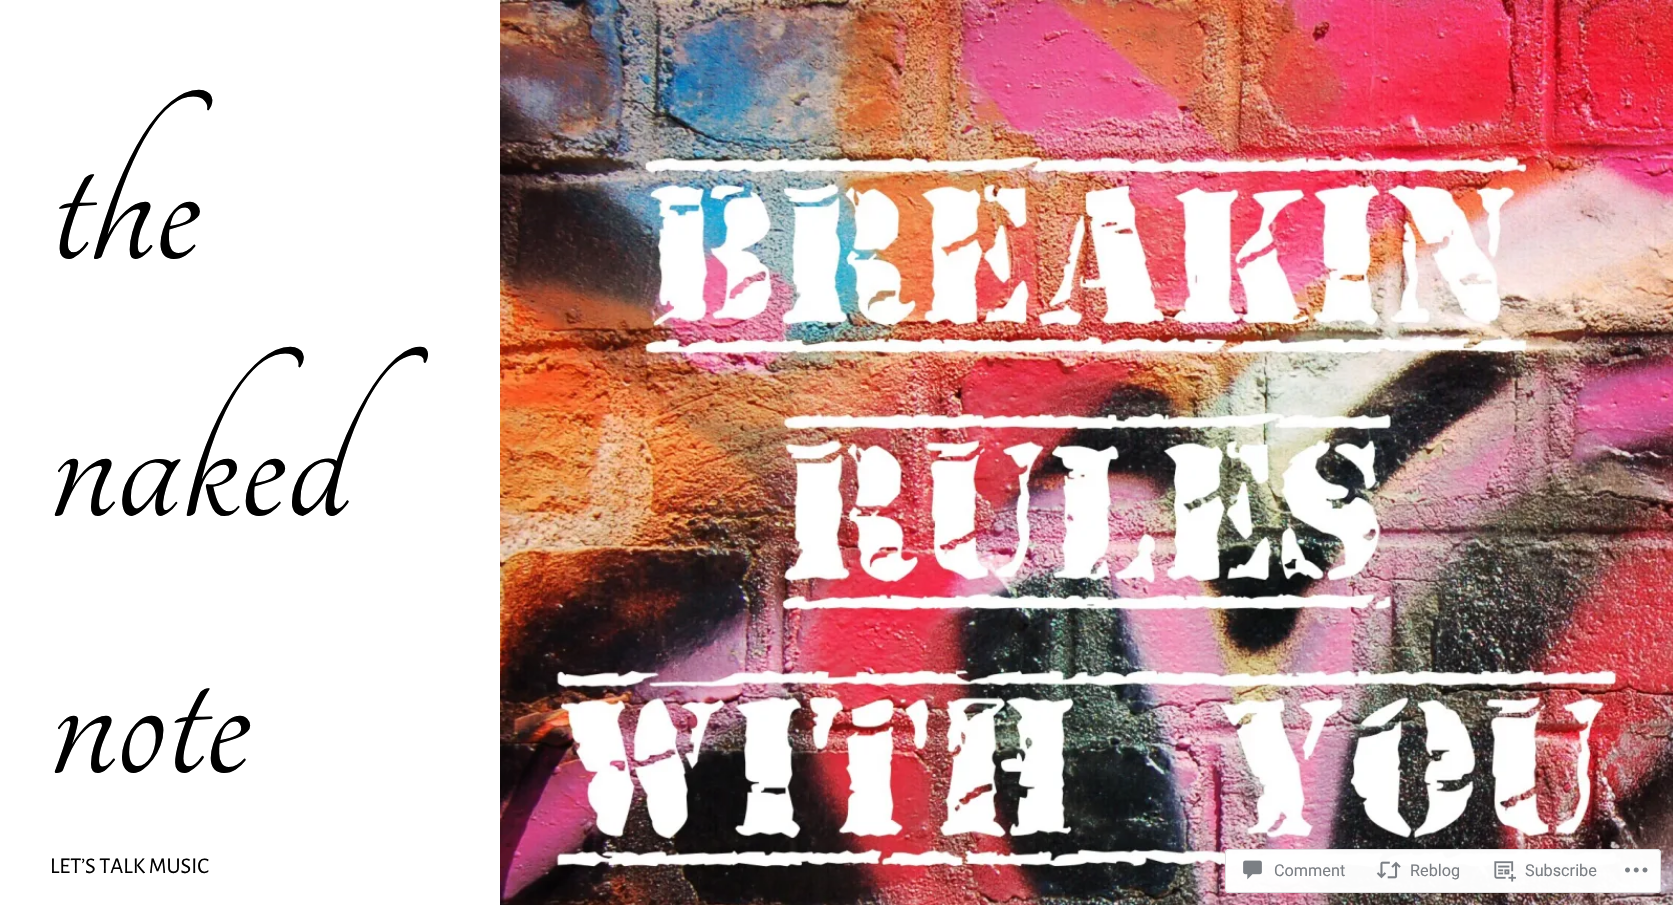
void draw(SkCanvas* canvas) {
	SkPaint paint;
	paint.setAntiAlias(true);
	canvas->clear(0xffffffff);
	SkFont f1(fontMgr->matchFamilyStyle("Tangerine", SkFontStyle::Normal()), 224);
	f1.setSubpixel(true);
	paint.setColor(0xff000000);
	canvas->drawString("the", 50, 259, f1, paint);
	canvas->drawString("naked", 50, 516, f1, paint);
	canvas->drawString("note", 50, 773, f1, paint);
	SkFont f2(fontMgr->matchFamilyStyle("Alegreya Sans", SkFontStyle::Normal()), 22.5);
	f2.setSubpixel(true);
	canvas->drawString("LET’S TALK MUSIC", 50, 873, f2, paint);
	canvas->drawImageRect(SkImages::DeferredFromEncodedData(SkData::MakeFromFileName("img1.png")), SkRect::MakeXYWH(500, 0, 1173, 905), SkSamplingOptions());
	paint.setColor(0xfaffffff);
	canvas->drawRoundRect(SkRect::MakeXYWH(1225, 849, 436, 44), 4, 4, paint);
	paint.setStroke(true);
	paint.setStrokeWidth(1);
	paint.setColor(0xfadcdcde);
	canvas->drawRoundRect(SkRect::MakeXYWH(1225.5, 849.5, 435, 43), 3.5, 3.5, paint);
	canvas->drawImageRect(SkImages::DeferredFromEncodedData(SkData::MakeFromFileName("img2.png")), SkRect::MakeXYWH(1243, 860, 19, 20), SkSamplingOptions());
	SkFont f3(fontMgr->matchFamilyStyle("Roboto", SkFontStyle::Normal()), 16.25);
	f3.setSubpixel(true);
	paint.setStroke(false);
	paint.setColor(0xff7b7f84);
	canvas->drawString("Comment", 1274, 876, f3, paint);
	canvas->drawImageRect(SkImages::DeferredFromEncodedData(SkData::MakeFromFileName("img3.png")), SkRect::MakeXYWH(1376, 861, 25, 18), SkSamplingOptions());
	canvas->drawString("Reblog", 1410, 876, f3, paint);
	canvas->drawImageRect(SkImages::DeferredFromEncodedData(SkData::MakeFromFileName("img4.png")), SkRect::MakeXYWH(1494, 861, 22, 21), SkSamplingOptions());
	canvas->drawString("Subscribe", 1525, 876, f3, paint);
	canvas->drawImageRect(SkImages::DeferredFromEncodedData(SkData::MakeFromFileName("img5.png")), SkRect::MakeXYWH(1625, 867, 23, 6), SkSamplingOptions());
}
